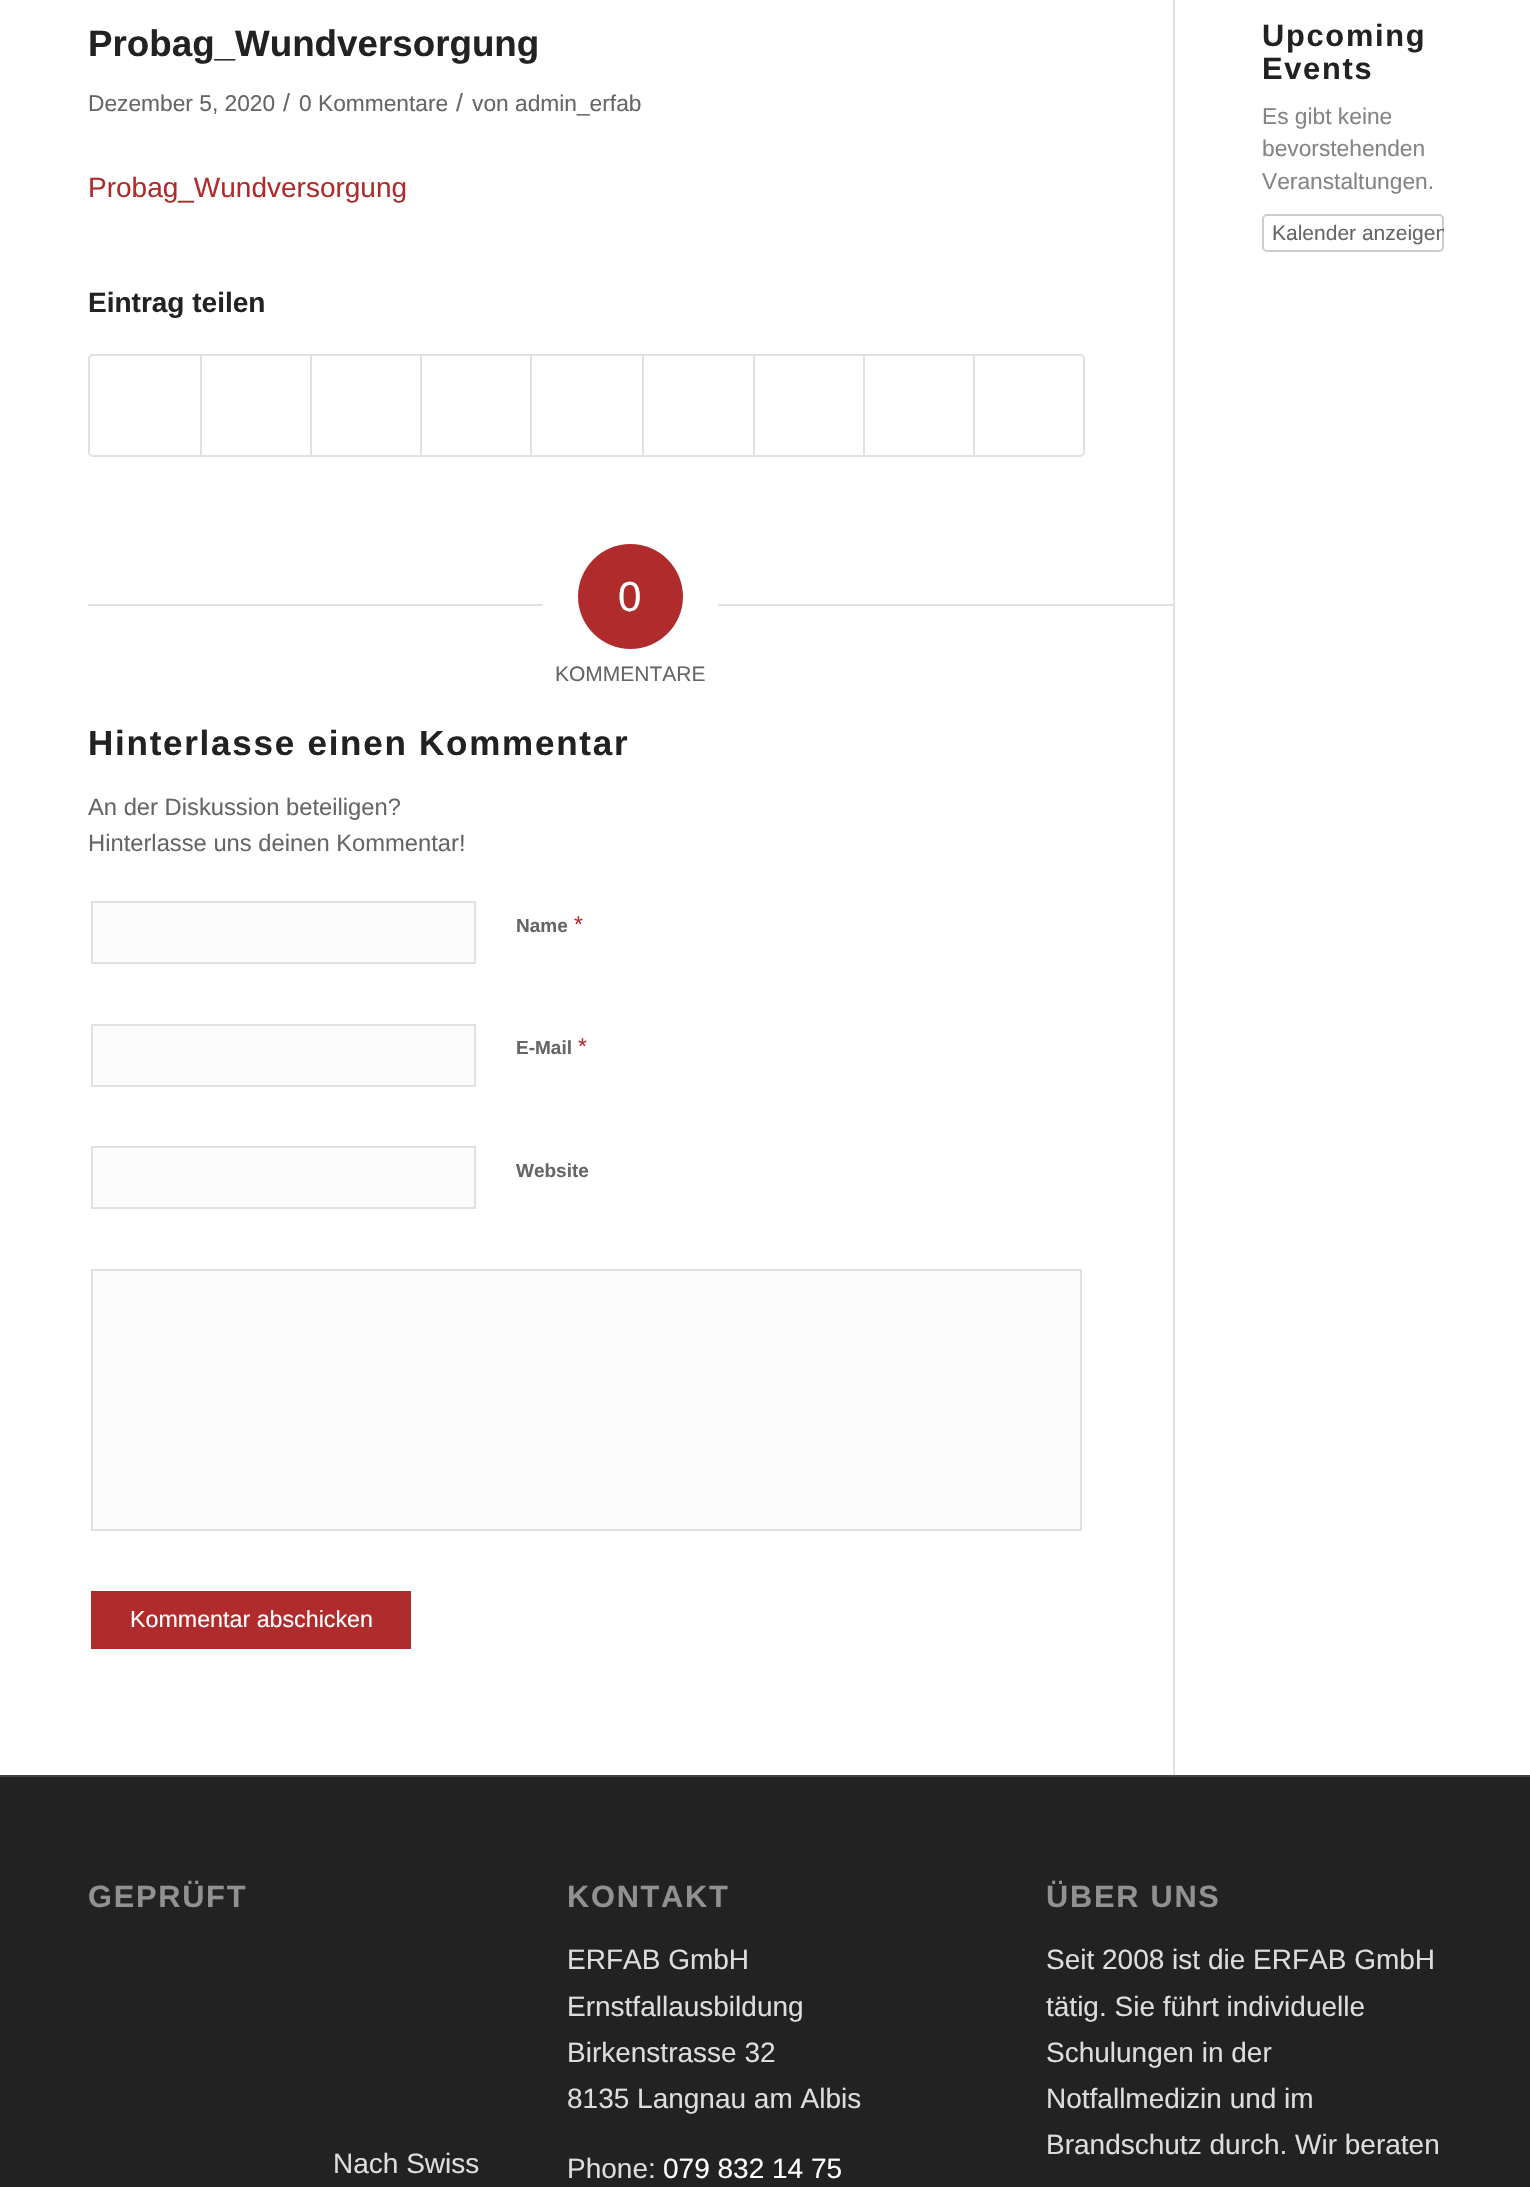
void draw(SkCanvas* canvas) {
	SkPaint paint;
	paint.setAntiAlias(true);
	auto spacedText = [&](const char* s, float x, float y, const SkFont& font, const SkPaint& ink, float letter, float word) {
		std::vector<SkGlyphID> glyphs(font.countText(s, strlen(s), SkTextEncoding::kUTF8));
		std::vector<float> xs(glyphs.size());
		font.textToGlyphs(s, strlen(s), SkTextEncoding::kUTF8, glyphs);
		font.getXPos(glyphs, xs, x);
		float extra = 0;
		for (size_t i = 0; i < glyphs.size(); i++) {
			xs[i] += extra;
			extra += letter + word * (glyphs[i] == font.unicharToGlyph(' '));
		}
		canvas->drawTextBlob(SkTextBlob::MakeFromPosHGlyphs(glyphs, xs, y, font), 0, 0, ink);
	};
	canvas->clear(0xffffffff);
	paint.setColor(0xffe1e1e1);
	canvas->drawRect(SkRect::MakeXYWH(1173, 0, 2, 1775), paint);
	SkFont f1(fontMgr->matchFamilyStyle("Liberation Sans", SkFontStyle::Bold()), 36.75);
	f1.setSubpixel(true);
	paint.setColor(0xff222222);
	canvas->drawString("Probag_Wundversorgung", 88, 56, f1, paint);
	SkFont f2(fontMgr->matchFamilyStyle("Liberation Sans", SkFontStyle::Normal()), 22.75);
	f2.setSubpixel(true);
	paint.setColor(0xff666666);
	canvas->drawString("Dezember 5, 2020", 88, 111, f2, paint);
	SkFont f3(fontMgr->matchFamilyStyle("Liberation Sans", SkFontStyle::Normal()), 25);
	f3.setSubpixel(true);
	canvas->drawString("/", 283, 111, f3, paint);
	canvas->drawString("0 Kommentare", 299, 111, f2, paint);
	canvas->drawString("/", 456, 111, f3, paint);
	canvas->drawString("von admin_erfab", 472, 111, f2, paint);
	SkFont f4(fontMgr->matchFamilyStyle("Liberation Sans", SkFontStyle::Normal()), 28);
	f4.setSubpixel(true);
	paint.setColor(0xffb02b2b);
	canvas->drawString("Probag_Wundversorgung", 88, 197, f4, paint);
	SkFont f5(fontMgr->matchFamilyStyle("Liberation Sans", SkFontStyle::Bold()), 28);
	f5.setSubpixel(true);
	paint.setColor(0xff222222);
	canvas->drawString("Eintrag teilen", 88, 312, f5, paint);
	paint.setStroke(true);
	paint.setStrokeWidth(2);
	paint.setColor(0xffe1e1e1);
	canvas->drawRoundRect(SkRect::MakeXYWH(89, 355, 995, 101), 4, 4, paint);
	paint.setStroke(false);
	canvas->drawRect(SkRect::MakeXYWH(200, 355, 2, 100), paint);
	canvas->drawRect(SkRect::MakeXYWH(310, 355, 2, 100), paint);
	canvas->drawRect(SkRect::MakeXYWH(420, 355, 2, 100), paint);
	canvas->drawRect(SkRect::MakeXYWH(530, 355, 2, 100), paint);
	canvas->drawRect(SkRect::MakeXYWH(642, 355, 2, 100), paint);
	canvas->drawRect(SkRect::MakeXYWH(753, 355, 2, 100), paint);
	canvas->drawRect(SkRect::MakeXYWH(863, 355, 2, 100), paint);
	canvas->drawRect(SkRect::MakeXYWH(973, 355, 2, 100), paint);
	canvas->drawRect(SkRect::MakeXYWH(88, 604, 455, 2), paint);
	paint.setColor(0xffb02b2b);
	canvas->drawCircle(630.5, 596.5, 52.5, paint);
	SkFont f6(fontMgr->matchFamilyStyle("Liberation Sans", SkFontStyle::Normal()), 42);
	f6.setSubpixel(true);
	paint.setColor(0xffffffff);
	canvas->drawString("0", 618, 611, f6, paint);
	paint.setColor(0xffe1e1e1);
	canvas->drawRect(SkRect::MakeXYWH(718, 604, 455, 2), paint);
	SkFont f7(fontMgr->matchFamilyStyle("Liberation Sans", SkFontStyle::Normal()), 21);
	f7.setSubpixel(true);
	paint.setColor(0xff666666);
	canvas->drawString("KOMMENTARE", 555, 681, f7, paint);
	SkFont f8(fontMgr->matchFamilyStyle("Liberation Sans", SkFontStyle::Bold()), 35);
	f8.setSubpixel(true);
	paint.setColor(0xff222222);
	spacedText("Hinterlasse einen Kommentar", 88, 755, f8, paint, 1.75, 0);
	SkFont f9(fontMgr->matchFamilyStyle("Liberation Sans", SkFontStyle::Normal()), 23.75);
	f9.setSubpixel(true);
	paint.setColor(0xff666666);
	canvas->drawString("An der Diskussion beteiligen?", 88, 815, f9, paint);
	canvas->drawString("Hinterlasse uns deinen Kommentar!", 88, 851, f9, paint);
	paint.setColor(0xfffcfcfc);
	canvas->drawRect(SkRect::MakeXYWH(92, 902, 383, 61), paint);
	paint.setStroke(true);
	paint.setColor(0xffe1e1e1);
	canvas->drawRect(SkRect::MakeXYWH(92, 902, 383, 61), paint);
	SkFont f10(fontMgr->matchFamilyStyle("Liberation Sans", SkFontStyle::Bold()), 19);
	f10.setSubpixel(true);
	paint.setStroke(false);
	paint.setColor(0xff666666);
	canvas->drawString("Name", 516, 932, f10, paint);
	paint.setColor(0xffb02b2b);
	canvas->drawString("*", 574, 932, f2, paint);
	paint.setColor(0xfffcfcfc);
	canvas->drawRect(SkRect::MakeXYWH(92, 1025, 383, 61), paint);
	paint.setStroke(true);
	paint.setColor(0xffe1e1e1);
	canvas->drawRect(SkRect::MakeXYWH(92, 1025, 383, 61), paint);
	paint.setStroke(false);
	paint.setColor(0xff666666);
	canvas->drawString("E-Mail", 516, 1054, f10, paint);
	paint.setColor(0xffb02b2b);
	canvas->drawString("*", 578, 1054, f2, paint);
	paint.setColor(0xfffcfcfc);
	canvas->drawRect(SkRect::MakeXYWH(92, 1147, 383, 61), paint);
	paint.setStroke(true);
	paint.setColor(0xffe1e1e1);
	canvas->drawRect(SkRect::MakeXYWH(92, 1147, 383, 61), paint);
	paint.setStroke(false);
	paint.setColor(0xff666666);
	canvas->drawString("Website", 516, 1177, f10, paint);
	paint.setColor(0xfffcfcfc);
	canvas->drawRect(SkRect::MakeXYWH(92, 1270, 989, 260), paint);
	paint.setStroke(true);
	paint.setColor(0xffe1e1e1);
	canvas->drawRect(SkRect::MakeXYWH(92, 1270, 989, 260), paint);
	paint.setStroke(false);
	paint.setColor(0xffb02b2b);
	canvas->drawRect(SkRect::MakeXYWH(91, 1591, 320, 58), paint);
	SkFont f11(fontMgr->matchFamilyStyle("Liberation Sans", SkFontStyle::Normal()), 23.25);
	f11.setSubpixel(true);
	paint.setColor(0xffffffff);
	canvas->drawString("Kommentar abschicken", 130, 1627, f11, paint);
	SkFont f12(fontMgr->matchFamilyStyle("Liberation Sans", SkFontStyle::Bold()), 30.75);
	f12.setSubpixel(true);
	paint.setColor(0xff222222);
	spacedText("Upcoming", 1262, 46, f12, paint, 1.75, 0);
	spacedText("Events", 1262, 79, f12, paint, 1.75, 0);
	paint.setColor(0xff858585);
	canvas->drawString("Es gibt keine", 1262, 124, f2, paint);
	canvas->drawString("bevorstehenden", 1262, 156, f2, paint);
	canvas->drawString("Veranstaltungen.", 1262, 189, f2, paint);
	paint.setStroke(true);
	paint.setColor(0xffcccccc);
	canvas->drawRoundRect(SkRect::MakeXYWH(1263, 215, 180, 36), 4, 4, paint);
	canvas->save();
	canvas->clipRect(SkRect::MakeXYWH(1174, 0, 270, 392));
	paint.setStroke(false);
	paint.setColor(0xff666666);
	canvas->drawString("Kalender anzeigen", 1272, 240, f7, paint);
	canvas->restore();
	paint.setColor(0xff222222);
	canvas->drawRect(SkRect::MakeXYWH(0, 1777, 1530, 410), paint);
	paint.setColor(0xff444444);
	canvas->drawRect(SkRect::MakeXYWH(0, 1775, 1530, 2), paint);
	paint.setColor(0xff919191);
	spacedText("GEPRÜFT", 88, 1907, f12, paint, 1.75, 0);
	paint.setColor(0xffdddddd);
	canvas->drawString("Nach Swiss", 333, 2173, f4, paint);
	paint.setColor(0xff919191);
	spacedText("KONTAKT", 567, 1907, f12, paint, 1.75, 0);
	paint.setColor(0xffdddddd);
	canvas->drawString("ERFAB GmbH", 567, 1969, f4, paint);
	canvas->drawString("Ernstfallausbildung", 567, 2016, f4, paint);
	canvas->drawString("Birkenstrasse 32", 567, 2062, f4, paint);
	canvas->drawString("8135 Langnau am Albis", 567, 2108, f4, paint);
	canvas->drawString("Phone:", 567, 2178, f4, paint);
	paint.setColor(0xffffffff);
	canvas->drawString("079 832 14 75", 663, 2178, f4, paint);
	paint.setColor(0xff919191);
	spacedText("ÜBER UNS", 1046, 1907, f12, paint, 1.75, 0);
	paint.setColor(0xffdddddd);
	canvas->drawString("Seit 2008 ist die ERFAB GmbH", 1046, 1969, f4, paint);
	canvas->drawString("tätig. Sie führt individuelle", 1046, 2016, f4, paint);
	canvas->drawString("Schulungen in der", 1046, 2062, f4, paint);
	canvas->drawString("Notfallmedizin und im", 1046, 2108, f4, paint);
	canvas->drawString("Brandschutz durch. Wir beraten", 1046, 2154, f4, paint);
}
